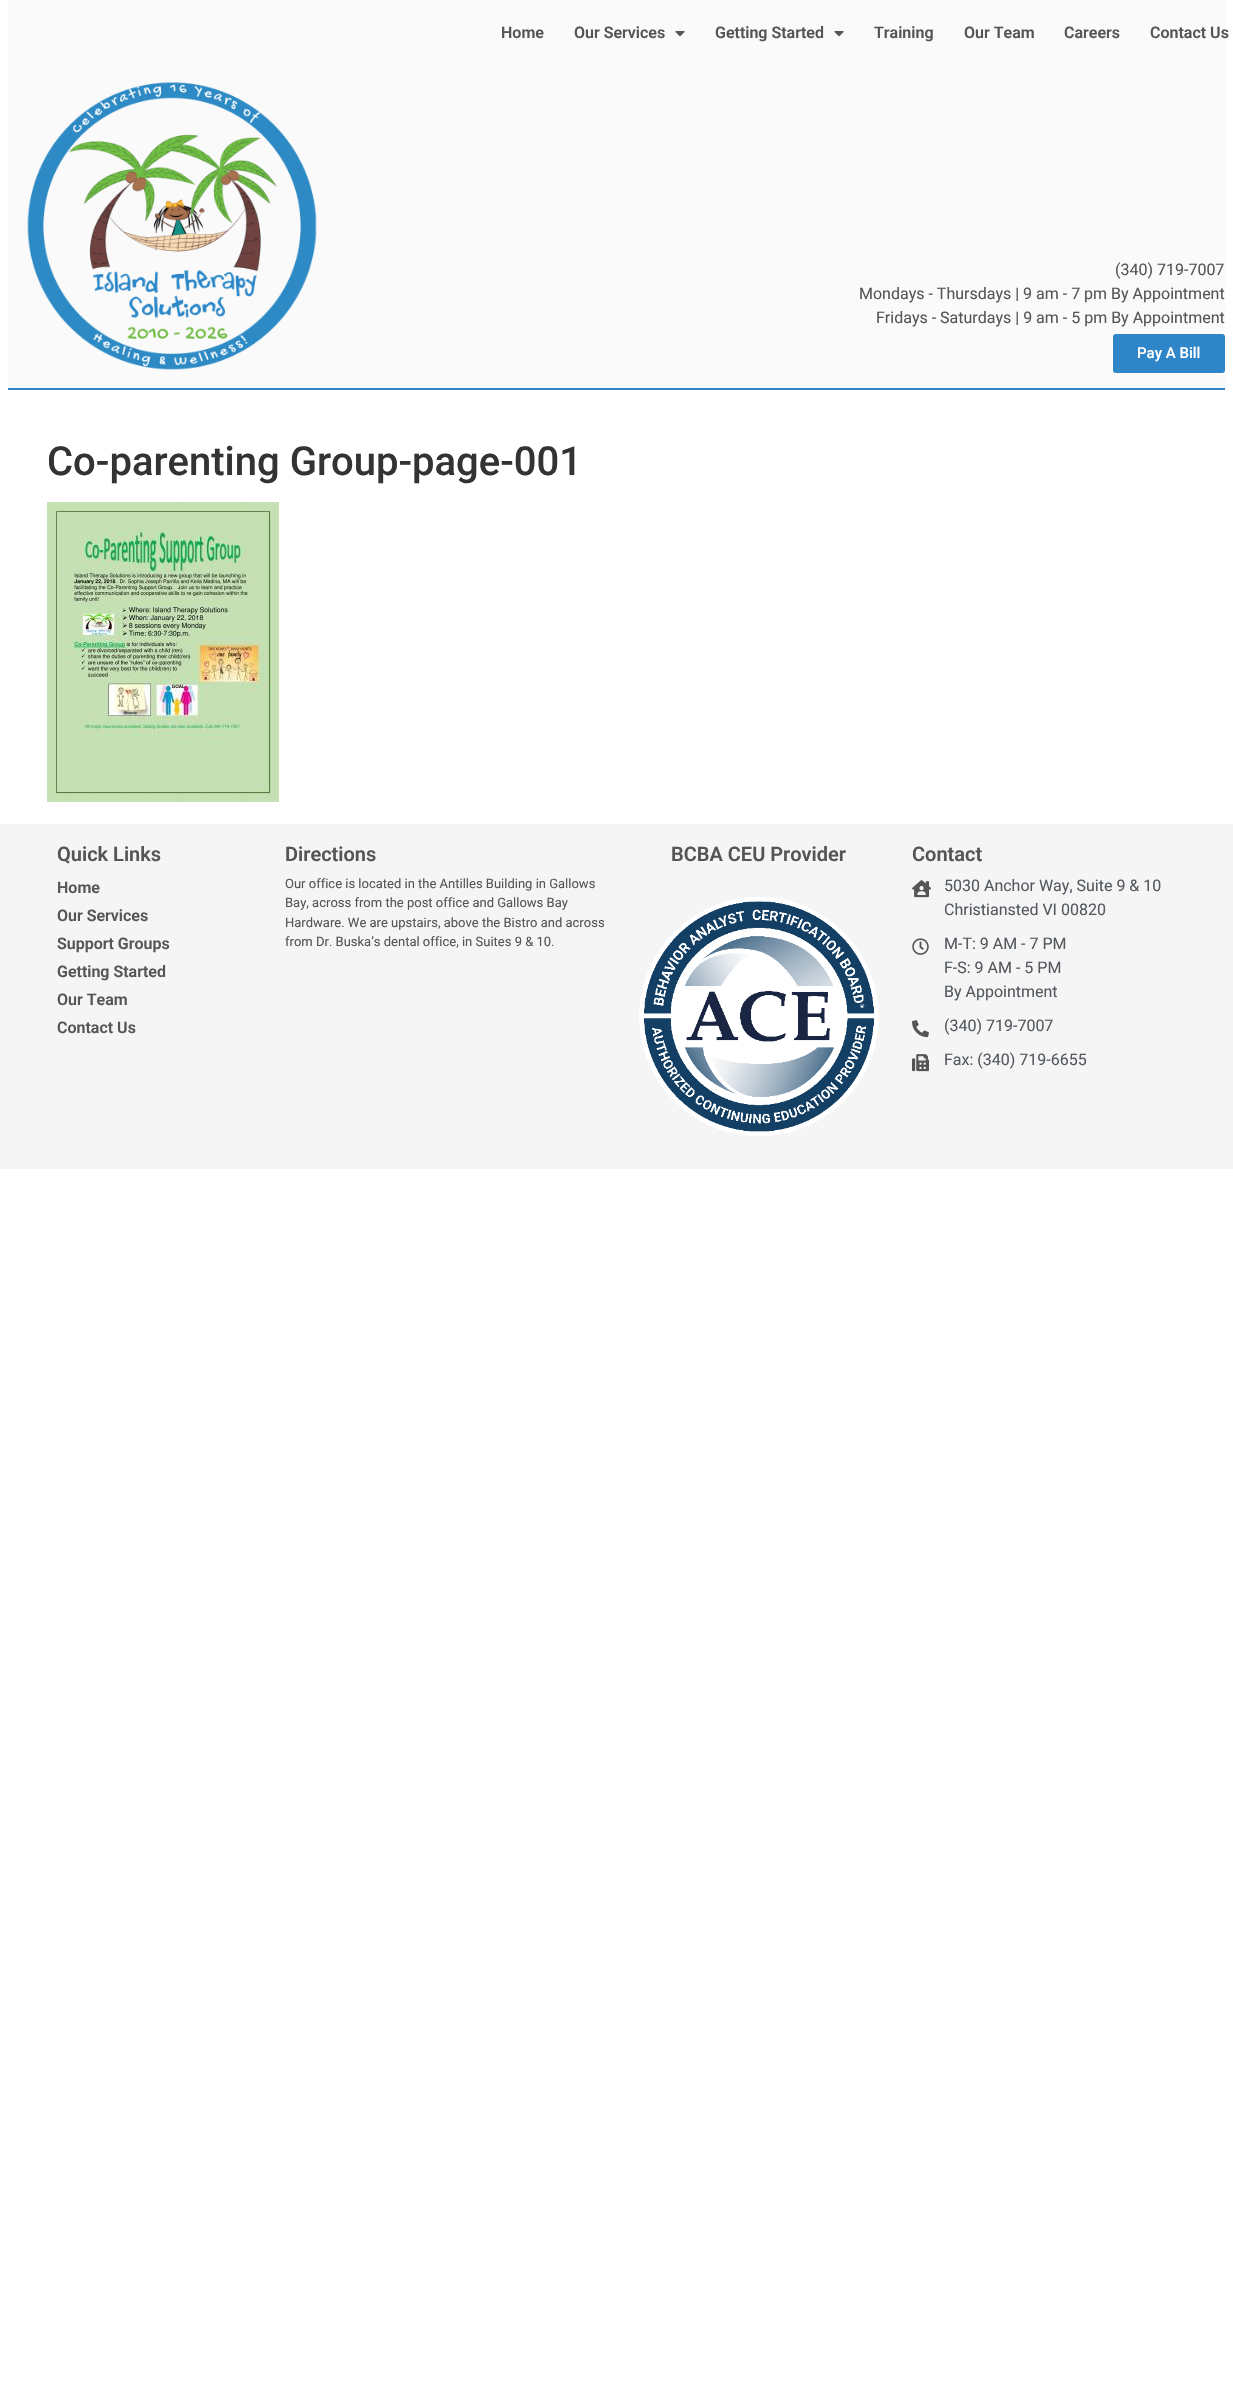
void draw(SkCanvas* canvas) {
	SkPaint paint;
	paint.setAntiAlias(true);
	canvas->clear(0xffffffff);
	paint.setColor(0xfffafafa);
	canvas->drawRect(SkRect::MakeXYWH(8, 0, 1217, 388), paint);
	paint.setColor(0xff2e85c7);
	canvas->drawRect(SkRect::MakeXYWH(8, 388, 1217, 2), paint);
	SkFont f1(fontMgr->matchFamilyStyle("Roboto", SkFontStyle(600, SkFontStyle::kNormal_Width, SkFontStyle::kUpright_Slant)), 16);
	f1.setSubpixel(true);
	paint.setColor(0xff555555);
	canvas->drawString("Home", 501, 38, f1, paint);
	canvas->drawString("Our Services", 574, 38, f1, paint);
	canvas->drawImageRect(SkImages::DeferredFromEncodedData(SkData::MakeFromFileName("img1.png")), SkRect::MakeXYWH(675, 31, 10, 6), SkSamplingOptions());
	canvas->drawString("Getting Started", 715, 38, f1, paint);
	canvas->drawImageRect(SkImages::DeferredFromEncodedData(SkData::MakeFromFileName("img1.png")), SkRect::MakeXYWH(834, 31, 10, 6), SkSamplingOptions());
	canvas->drawString("Training", 874, 38, f1, paint);
	canvas->drawString("Our Team", 964, 38, f1, paint);
	canvas->drawString("Careers", 1064, 38, f1, paint);
	canvas->drawString("Contact Us", 1150, 38, f1, paint);
	canvas->drawImageRect(SkImages::DeferredFromEncodedData(SkData::MakeFromFileName("img2.png")), SkRect::MakeXYWH(27, 82, 290, 288), SkSamplingOptions());
	SkFont f2(fontMgr->matchFamilyStyle("Roboto", SkFontStyle::Normal()), 16);
	f2.setSubpixel(true);
	canvas->drawString("(340) 719-7007", 1115, 275, f2, paint);
	canvas->drawString("Mondays - Thursdays | 9 am - 7 pm By Appointment", 859, 299, f2, paint);
	canvas->drawString("Fridays - Saturdays | 9 am - 5 pm By Appointment", 876, 323, f2, paint);
	paint.setColor(0xff2e85c7);
	canvas->drawRoundRect(SkRect::MakeXYWH(1113, 334, 112, 39), 3, 3, paint);
	SkFont f3(fontMgr->matchFamilyStyle("Roboto", SkFontStyle(500, SkFontStyle::kNormal_Width, SkFontStyle::kUpright_Slant)), 15);
	f3.setSubpixel(true);
	paint.setColor(0xffffffff);
	canvas->drawString("Pay A Bill", 1137, 358, f3, paint);
	SkFont f4(fontMgr->matchFamilyStyle("Roboto", SkFontStyle(500, SkFontStyle::kNormal_Width, SkFontStyle::kUpright_Slant)), 40);
	f4.setSubpixel(true);
	paint.setColor(0xff333333);
	canvas->drawString("Co-parenting Group-page-001", 47, 475, f4, paint);
	canvas->drawImageRect(SkImages::DeferredFromEncodedData(SkData::MakeFromFileName("img3.png")), SkRect::MakeXYWH(47, 502, 232, 300), SkSamplingOptions());
	paint.setColor(0xfff5f5f5);
	canvas->drawRect(SkRect::MakeXYWH(0, 824, 1233, 345), paint);
	SkFont f5(fontMgr->matchFamilyStyle("Roboto", SkFontStyle(600, SkFontStyle::kNormal_Width, SkFontStyle::kUpright_Slant)), 20);
	f5.setSubpixel(true);
	paint.setColor(0xff555555);
	canvas->drawString("Quick Links", 57, 861, f5, paint);
	canvas->drawString("Home", 57, 893, f1, paint);
	canvas->drawString("Our Services", 57, 921, f1, paint);
	canvas->drawString("Support Groups", 57, 949, f1, paint);
	canvas->drawString("Getting Started", 57, 977, f1, paint);
	canvas->drawString("Our Team", 57, 1005, f1, paint);
	canvas->drawString("Contact Us", 57, 1033, f1, paint);
	canvas->drawString("Directions", 285, 861, f5, paint);
	SkFont f6(fontMgr->matchFamilyStyle("Roboto", SkFontStyle::Normal()), 13);
	f6.setSubpixel(true);
	canvas->drawString("Our office is located in the Antilles Building in Gallows", 285, 888, f6, paint);
	canvas->drawString("Bay, across from the post office and Gallows Bay", 285, 907, f6, paint);
	canvas->drawString("Hardware. We are upstairs, above the Bistro and across", 285, 927, f6, paint);
	canvas->drawString("from Dr. Buska’s dental office, in Suites 9 & 10.", 285, 946, f6, paint);
	canvas->drawString("BCBA CEU Provider", 671, 861, f5, paint);
	canvas->drawImageRect(SkImages::DeferredFromEncodedData(SkData::MakeFromFileName("img4.png")), SkRect::MakeXYWH(639, 897, 240, 239), SkSamplingOptions());
	canvas->drawString("Contact", 912, 861, f5, paint);
	canvas->drawImageRect(SkImages::DeferredFromEncodedData(SkData::MakeFromFileName("img5.png")), SkRect::MakeXYWH(912, 880, 20, 18), SkSamplingOptions());
	paint.setColor(0xff54595f);
	canvas->drawString("5030 Anchor Way, Suite 9 & 10", 944, 891, f2, paint);
	canvas->drawString("Christiansted VI 00820", 944, 915, f2, paint);
	canvas->drawImageRect(SkImages::DeferredFromEncodedData(SkData::MakeFromFileName("img6.png")), SkRect::MakeXYWH(912, 938, 17, 17), SkSamplingOptions());
	canvas->drawString("M-T: 9 AM - 7 PM", 944, 949, f2, paint);
	canvas->drawString("F-S: 9 AM - 5 PM", 944, 973, f2, paint);
	canvas->drawString("By Appointment", 944, 997, f2, paint);
	canvas->drawImageRect(SkImages::DeferredFromEncodedData(SkData::MakeFromFileName("img7.png")), SkRect::MakeXYWH(912, 1020, 17, 18), SkSamplingOptions());
	canvas->drawString("(340) 719-7007", 944, 1031, f2, paint);
	canvas->drawImageRect(SkImages::DeferredFromEncodedData(SkData::MakeFromFileName("img8.png")), SkRect::MakeXYWH(912, 1054, 17, 18), SkSamplingOptions());
	canvas->drawString("Fax: (340) 719-6655", 944, 1065, f2, paint);
}
